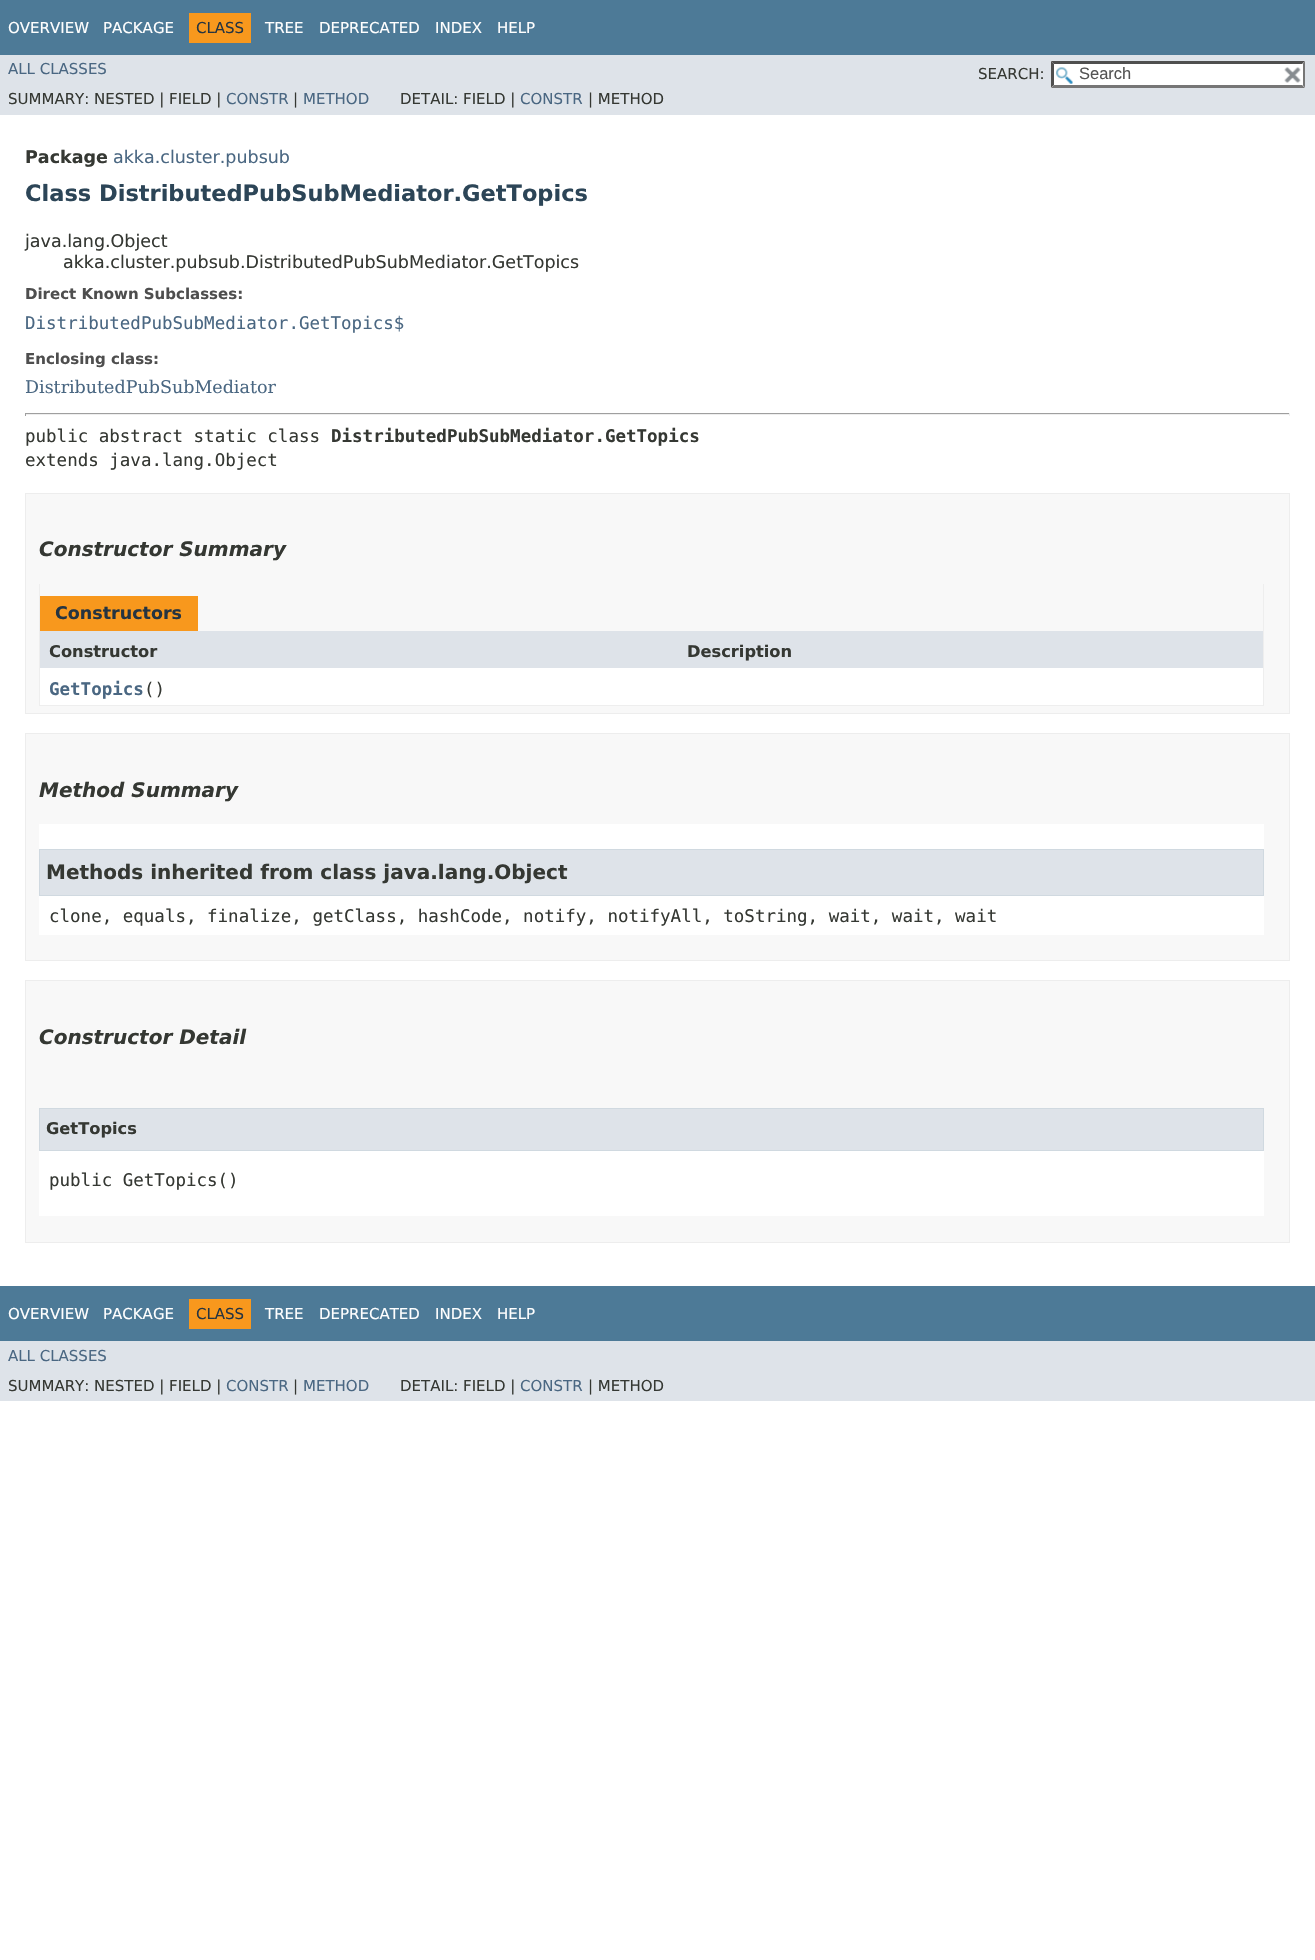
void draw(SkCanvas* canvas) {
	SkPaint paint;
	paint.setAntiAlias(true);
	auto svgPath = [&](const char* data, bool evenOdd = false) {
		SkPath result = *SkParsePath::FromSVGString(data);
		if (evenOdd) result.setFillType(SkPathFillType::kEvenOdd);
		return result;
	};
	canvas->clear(0xffffffff);
	paint.setColor(0xff4d7a97);
	canvas->drawRect(SkRect::MakeXYWH(0, 0, 1315, 55), paint);
	SkFont f1(fontMgr->matchFamilyStyle("DejaVu Sans", SkFontStyle::Normal()), 15);
	f1.setSubpixel(true);
	paint.setColor(0xffffffff);
	canvas->drawString("OVERVIEW", 8, 33, f1, paint);
	canvas->drawString("PACKAGE", 103, 33, f1, paint);
	paint.setColor(0xfff8981d);
	canvas->drawRect(SkRect::MakeXYWH(189, 13, 62, 30), paint);
	paint.setColor(0xff253441);
	canvas->drawString("CLASS", 196, 33, f1, paint);
	paint.setColor(0xffffffff);
	canvas->drawString("TREE", 265, 33, f1, paint);
	canvas->drawString("DEPRECATED", 319, 33, f1, paint);
	canvas->drawString("INDEX", 435, 33, f1, paint);
	canvas->drawString("HELP", 497, 33, f1, paint);
	paint.setColor(0xffdee3e9);
	canvas->drawRect(SkRect::MakeXYWH(0, 55, 1315, 60), paint);
	paint.setColor(0xff4a6782);
	canvas->drawString("ALL CLASSES", 8, 74, f1, paint);
	paint.setColor(0xff353833);
	canvas->drawString("SEARCH:", 978, 79, f1, paint);
	paint.setColor(0xffffffff);
	canvas->drawRect(SkRect::MakeXYWH(1051, 61, 254, 27), paint);
	canvas->drawImageRect(SkImages::DeferredFromEncodedData(SkData::MakeFromFileName("img1.png")), SkRect::MakeXYWH(1056, 67, 17, 17), SkSamplingOptions());
	paint.setColor(0xff4f4f4f);
	canvas->drawPath(svgPath("M1051 61H1305L1302 64H1054Z"), paint);
	paint.setColor(0xff767676);
	canvas->drawPath(svgPath("M1305 61V87.5L1302.5 85V64Z"), paint);
	canvas->drawPath(svgPath("M1305 88H1051L1054 85H1302Z"), paint);
	paint.setColor(0xff4f4f4f);
	canvas->drawPath(svgPath("M1051 87.5V61L1054 64V85Z"), paint);
	SkFont f2(fontMgr->matchFamilyStyle("Liberation Sans", SkFontStyle::Normal()), 16.5);
	f2.setSubpixel(true);
	paint.setColor(0xff545454);
	canvas->drawString("Search", 1079, 79, f2, paint);
	paint.setColor(0xffffffff);
	canvas->drawRect(SkRect::MakeXYWH(1302, 64, 1, 21), paint);
	canvas->drawImageRect(SkImages::DeferredFromEncodedData(SkData::MakeFromFileName("img2.png")), SkRect::MakeXYWH(1284, 67, 17, 16), SkSamplingOptions());
	paint.setColor(0xff353833);
	canvas->drawString("SUMMARY: NESTED | FIELD |", 8, 104, f1, paint);
	paint.setColor(0xff4a6782);
	canvas->drawString("CONSTR", 226, 104, f1, paint);
	paint.setColor(0xff353833);
	canvas->drawString("|", 293, 104, f1, paint);
	paint.setColor(0xff4a6782);
	canvas->drawString("METHOD", 303, 104, f1, paint);
	paint.setColor(0xff353833);
	canvas->drawString("DETAIL: FIELD |", 400, 104, f1, paint);
	paint.setColor(0xff4a6782);
	canvas->drawString("CONSTR", 520, 104, f1, paint);
	paint.setColor(0xff353833);
	canvas->drawString("| METHOD", 588, 104, f1, paint);
	SkFont f3(fontMgr->matchFamilyStyle("DejaVu Sans", SkFontStyle::Bold()), 17.5);
	f3.setSubpixel(true);
	canvas->drawString("Package", 25, 163, f3, paint);
	SkFont f4(fontMgr->matchFamilyStyle("DejaVu Sans", SkFontStyle::Normal()), 17.5);
	f4.setSubpixel(true);
	paint.setColor(0xff4a6782);
	canvas->drawString("akka.cluster.pubsub", 113, 163, f4, paint);
	SkFont f5(fontMgr->matchFamilyStyle("DejaVu Sans", SkFontStyle::Bold()), 22.5);
	f5.setSubpixel(true);
	paint.setColor(0xff2c4557);
	canvas->drawString("Class DistributedPubSubMediator.GetTopics", 25, 201, f5, paint);
	paint.setColor(0xff353833);
	canvas->drawString("java.lang.Object", 25, 247, f4, paint);
	canvas->drawString("akka.cluster.pubsub.DistributedPubSubMediator.GetTopics", 63, 268, f4, paint);
	SkFont f6(fontMgr->matchFamilyStyle("DejaVu Sans", SkFontStyle::Bold()), 15);
	f6.setSubpixel(true);
	paint.setColor(0xff4e4e4e);
	canvas->drawString("Direct Known Subclasses:", 25, 299, f6, paint);
	SkFont f7(fontMgr->matchFamilyStyle("DejaVu Sans Mono", SkFontStyle::Normal()), 17.5);
	f7.setSubpixel(true);
	paint.setColor(0xff4a6782);
	canvas->drawString("DistributedPubSubMediator.GetTopics$", 25, 329, f7, paint);
	paint.setColor(0xff4e4e4e);
	canvas->drawString("Enclosing class:", 25, 364, f6, paint);
	SkFont f8(fontMgr->matchFamilyStyle("DejaVu Serif", SkFontStyle::Normal()), 17.5);
	f8.setSubpixel(true);
	paint.setColor(0xff4a6782);
	canvas->drawString("DistributedPubSubMediator", 25, 393, f8, paint);
	paint.setColor(0xff9f9f9f);
	canvas->drawRect(SkRect::MakeXYWH(25, 413, 1265, 1), paint);
	paint.setColor(0xffeeeeee);
	canvas->drawRect(SkRect::MakeXYWH(1289, 413, 1, 3), paint);
	canvas->drawRect(SkRect::MakeXYWH(25, 414, 1265, 1), paint);
	paint.setColor(0xff9f9f9f);
	canvas->drawRect(SkRect::MakeXYWH(25, 413, 1, 3), paint);
	paint.setColor(0xff353833);
	canvas->drawString("public abstract static class", 25, 442, f7, paint);
	SkFont f9(fontMgr->matchFamilyStyle("DejaVu Sans Mono", SkFontStyle::Bold()), 17.5);
	f9.setSubpixel(true);
	canvas->drawString("DistributedPubSubMediator.GetTopics", 331, 442, f9, paint);
	canvas->drawString("extends java.lang.Object", 25, 466, f7, paint);
	paint.setColor(0xfff8f8f8);
	canvas->drawRect(SkRect::MakeXYWH(25.5, 493.5, 1264, 220), paint);
	paint.setStroke(true);
	paint.setStrokeWidth(1);
	paint.setColor(0xffededed);
	canvas->drawRect(SkRect::MakeXYWH(25.5, 493.5, 1264, 220), paint);
	SkFont f10(fontMgr->matchFamilyStyle("DejaVu Sans", SkFontStyle::BoldItalic()), 20);
	f10.setSubpixel(true);
	paint.setStroke(false);
	paint.setColor(0xff353833);
	canvas->drawString("Constructor Summary", 39, 556, f10, paint);
	paint.setColor(0xffeeeeee);
	canvas->drawRect(SkRect::MakeXYWH(1263, 584, 1, 122), paint);
	canvas->drawRect(SkRect::MakeXYWH(39, 705, 1225, 1), paint);
	canvas->drawRect(SkRect::MakeXYWH(39, 584, 1, 122), paint);
	paint.setColor(0xfff8981d);
	canvas->drawRect(SkRect::MakeXYWH(40, 596, 158, 35), paint);
	paint.setColor(0xff253441);
	canvas->drawString("Constructors", 55, 619, f3, paint);
	paint.setColor(0xffdee3e9);
	canvas->drawRect(SkRect::MakeXYWH(40, 631, 1223, 37), paint);
	SkFont f11(fontMgr->matchFamilyStyle("DejaVu Sans", SkFontStyle::Bold()), 16.25);
	f11.setSubpixel(true);
	paint.setColor(0xff353833);
	canvas->drawString("Constructor", 49, 657, f11, paint);
	canvas->drawString("Description", 687, 657, f11, paint);
	paint.setColor(0xffffffff);
	canvas->drawRect(SkRect::MakeXYWH(40, 668, 1223, 37), paint);
	paint.setColor(0xff4a6782);
	canvas->drawString("GetTopics", 49, 695, f9, paint);
	paint.setColor(0xff353833);
	canvas->drawString("()", 144, 695, f7, paint);
	paint.setColor(0xfff8f8f8);
	canvas->drawRect(SkRect::MakeXYWH(25.5, 733.5, 1264, 227), paint);
	paint.setStroke(true);
	paint.setColor(0xffededed);
	canvas->drawRect(SkRect::MakeXYWH(25.5, 733.5, 1264, 227), paint);
	paint.setStroke(false);
	paint.setColor(0xff353833);
	canvas->drawString("Method Summary", 39, 797, f10, paint);
	paint.setColor(0xffffffff);
	canvas->drawRect(SkRect::MakeXYWH(39, 824, 1225, 111), paint);
	paint.setColor(0xffdee3e9);
	canvas->drawRect(SkRect::MakeXYWH(39.5, 849.5, 1224, 46), paint);
	paint.setStroke(true);
	paint.setColor(0xffd0d9e0);
	canvas->drawRect(SkRect::MakeXYWH(39.5, 849.5, 1224, 46), paint);
	SkFont f12(fontMgr->matchFamilyStyle("DejaVu Sans", SkFontStyle::Bold()), 20);
	f12.setSubpixel(true);
	paint.setStroke(false);
	paint.setColor(0xff353833);
	canvas->drawString("Methods inherited from class java.lang.Object", 46, 879, f12, paint);
	canvas->drawString("clone, equals, finalize, getClass, hashCode, notify, notifyAll, toString, wait, wait, wait", 49, 922, f7, paint);
	paint.setColor(0xfff8f8f8);
	canvas->drawRect(SkRect::MakeXYWH(25.5, 980.5, 1264, 262), paint);
	paint.setStroke(true);
	paint.setColor(0xffededed);
	canvas->drawRect(SkRect::MakeXYWH(25.5, 980.5, 1264, 262), paint);
	paint.setStroke(false);
	paint.setColor(0xff353833);
	canvas->drawString("Constructor Detail", 39, 1044, f10, paint);
	paint.setColor(0xffffffff);
	canvas->drawRect(SkRect::MakeXYWH(39, 1151, 1225, 65), paint);
	paint.setColor(0xffdee3e9);
	canvas->drawRect(SkRect::MakeXYWH(39.5, 1108.5, 1224, 42), paint);
	paint.setStroke(true);
	paint.setColor(0xffd0d9e0);
	canvas->drawRect(SkRect::MakeXYWH(39.5, 1108.5, 1224, 42), paint);
	paint.setStroke(false);
	paint.setColor(0xff353833);
	canvas->drawString("GetTopics", 46, 1134, f11, paint);
	canvas->drawString("public GetTopics()", 49, 1186, f7, paint);
	paint.setColor(0xff4d7a97);
	canvas->drawRect(SkRect::MakeXYWH(0, 1286, 1315, 55), paint);
	paint.setColor(0xffffffff);
	canvas->drawString("OVERVIEW", 8, 1319, f1, paint);
	canvas->drawString("PACKAGE", 103, 1319, f1, paint);
	paint.setColor(0xfff8981d);
	canvas->drawRect(SkRect::MakeXYWH(189, 1299, 62, 30), paint);
	paint.setColor(0xff253441);
	canvas->drawString("CLASS", 196, 1319, f1, paint);
	paint.setColor(0xffffffff);
	canvas->drawString("TREE", 265, 1319, f1, paint);
	canvas->drawString("DEPRECATED", 319, 1319, f1, paint);
	canvas->drawString("INDEX", 435, 1319, f1, paint);
	canvas->drawString("HELP", 497, 1319, f1, paint);
	paint.setColor(0xffdee3e9);
	canvas->drawRect(SkRect::MakeXYWH(0, 1341, 1315, 60), paint);
	paint.setColor(0xff4a6782);
	canvas->drawString("ALL CLASSES", 8, 1361, f1, paint);
	paint.setColor(0xff353833);
	canvas->drawString("SUMMARY: NESTED | FIELD |", 8, 1391, f1, paint);
	paint.setColor(0xff4a6782);
	canvas->drawString("CONSTR", 226, 1391, f1, paint);
	paint.setColor(0xff353833);
	canvas->drawString("|", 293, 1391, f1, paint);
	paint.setColor(0xff4a6782);
	canvas->drawString("METHOD", 303, 1391, f1, paint);
	paint.setColor(0xff353833);
	canvas->drawString("DETAIL: FIELD |", 400, 1391, f1, paint);
	paint.setColor(0xff4a6782);
	canvas->drawString("CONSTR", 520, 1391, f1, paint);
	paint.setColor(0xff353833);
	canvas->drawString("| METHOD", 588, 1391, f1, paint);
}
